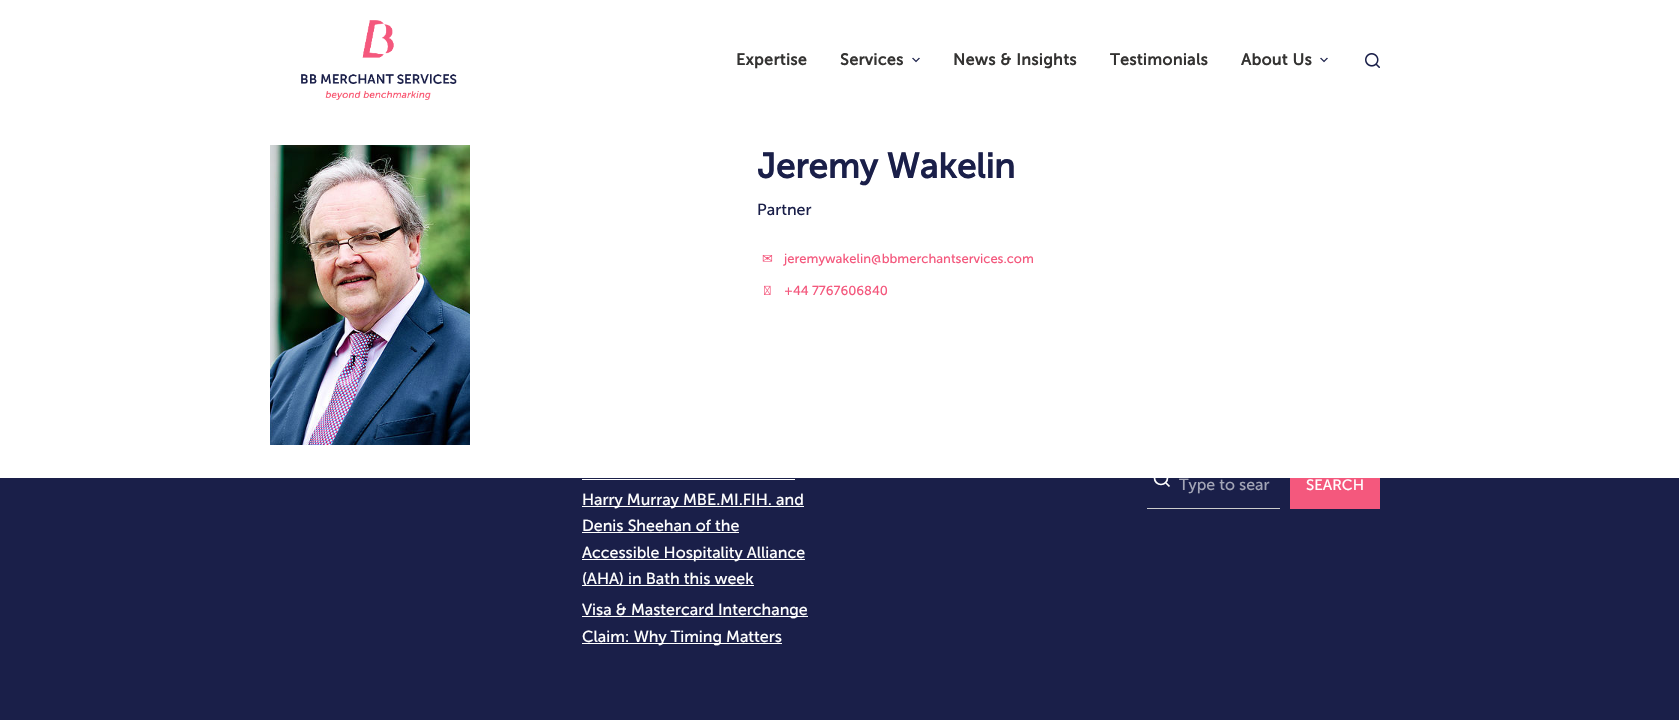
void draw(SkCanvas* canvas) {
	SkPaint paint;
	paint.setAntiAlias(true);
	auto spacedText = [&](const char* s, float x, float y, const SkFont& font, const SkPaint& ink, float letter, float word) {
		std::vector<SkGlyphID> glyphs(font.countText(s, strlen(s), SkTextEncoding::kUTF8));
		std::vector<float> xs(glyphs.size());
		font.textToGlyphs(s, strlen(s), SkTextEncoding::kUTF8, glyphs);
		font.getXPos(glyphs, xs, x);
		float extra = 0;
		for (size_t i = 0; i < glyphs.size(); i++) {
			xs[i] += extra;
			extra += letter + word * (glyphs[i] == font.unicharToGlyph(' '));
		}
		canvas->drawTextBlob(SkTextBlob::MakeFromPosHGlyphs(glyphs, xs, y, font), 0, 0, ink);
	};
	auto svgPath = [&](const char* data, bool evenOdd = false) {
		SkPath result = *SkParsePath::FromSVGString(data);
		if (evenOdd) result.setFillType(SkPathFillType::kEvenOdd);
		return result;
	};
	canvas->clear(0xffffffff);
	canvas->drawImageRect(SkImages::DeferredFromEncodedData(SkData::MakeFromFileName("img1.png")), SkRect::MakeXYWH(301, 20, 156, 80), SkSamplingOptions());
	SkFont f1(fontMgr->matchFamilyStyle("Museo Sans", SkFontStyle::Bold()), 16);
	f1.setSubpixel(true);
	paint.setColor(0xff343332);
	spacedText("Expertise", 736, 65, f1, paint, 0.4, 0);
	spacedText("Services", 840, 65, f1, paint, 0.4, 0);
	canvas->drawImageRect(SkImages::DeferredFromEncodedData(SkData::MakeFromFileName("img2.png")), SkRect::MakeXYWH(912, 57, 8, 6), SkSamplingOptions());
	spacedText("News & Insights", 953, 65, f1, paint, 0.4, 0);
	spacedText("Testimonials", 1110, 65, f1, paint, 0.4, 0);
	spacedText("About Us", 1241, 65, f1, paint, 0.4, 0);
	canvas->drawImageRect(SkImages::DeferredFromEncodedData(SkData::MakeFromFileName("img2.png")), SkRect::MakeXYWH(1320, 57, 8, 6), SkSamplingOptions());
	canvas->drawImageRect(SkImages::DeferredFromEncodedData(SkData::MakeFromFileName("img3.png")), SkRect::MakeXYWH(1365, 53, 15, 15), SkSamplingOptions());
	canvas->drawImageRect(SkImages::DeferredFromEncodedData(SkData::MakeFromFileName("img4.png")), SkRect::MakeXYWH(270, 145, 200, 300), SkSamplingOptions());
	SkFont f2(fontMgr->matchFamilyStyle("Museo Sans", SkFontStyle::Bold()), 35);
	f2.setSubpixel(true);
	paint.setColor(0xff1a1f49);
	canvas->drawString("Jeremy Wakelin", 757, 178, f2, paint);
	SkFont f3(fontMgr->matchFamilyStyle("Museo Sans", SkFontStyle::Normal()), 16);
	f3.setSubpixel(true);
	canvas->drawString("Partner", 757, 215, f3, paint);
	SkFont f4(fontMgr->matchFamilyStyle("DejaVu Sans", SkFontStyle::Normal()), 13);
	f4.setSubpixel(true);
	paint.setColor(0xfff4587d);
	canvas->drawString("✉", 762, 263, f4, paint);
	SkFont f5(fontMgr->matchFamilyStyle("Museo Sans", SkFontStyle::Normal()), 13);
	f5.setSubpixel(true);
	canvas->drawString("jeremywakelin@bbmerchantservices.com", 784, 263, f5, paint);
	canvas->drawImageRect(SkImages::DeferredFromEncodedData(SkData::MakeFromFileName("img5.png")), SkRect::MakeXYWH(764, 285, 7, 10), SkSamplingOptions());
	canvas->drawString("+44 7767606840", 784, 295, f5, paint);
	paint.setColor(0xff1a1f49);
	canvas->drawRect(SkRect::MakeXYWH(0, 478, 1679, 242), paint);
	paint.setColor(0xffcccccc);
	canvas->drawRect(SkRect::MakeXYWH(1147, 508, 133, 1), paint);
	paint.setStroke(true);
	paint.setStrokeWidth(1.7);
	paint.setColor(0xffffffff);
	canvas->drawCircle(1161, 478, 6.5, paint);
	canvas->drawPath(svgPath("M1169.5 486.5L1166 483"), paint);
	paint.setStroke(false);
	paint.setColor(0xffa3a5b6);
	canvas->drawString("Type to sear", 1179, 490, f3, paint);
	paint.setColor(0xfff4587d);
	canvas->drawRect(SkRect::MakeXYWH(1290, 478, 90, 31), paint);
	SkFont f6(fontMgr->matchFamilyStyle("Museo Sans", SkFontStyle::Normal()), 15);
	f6.setSubpixel(true);
	paint.setColor(0xffffffff);
	canvas->drawString("SEARCH", 1306, 490, f6, paint);
	canvas->drawRect(SkRect::MakeXYWH(582, 506, 222, 1), paint);
	canvas->drawString("Harry Murray MBE.MI.FIH. and", 582, 505, f3, paint);
	canvas->drawRect(SkRect::MakeXYWH(582, 479, 213, 1), paint);
	canvas->drawString("Denis Sheehan of the", 582, 531, f3, paint);
	canvas->drawRect(SkRect::MakeXYWH(582, 532, 157, 1), paint);
	canvas->drawRect(SkRect::MakeXYWH(582, 559, 223, 1), paint);
	canvas->drawString("Accessible Hospitality Alliance", 582, 558, f3, paint);
	canvas->drawRect(SkRect::MakeXYWH(582, 585, 172, 1), paint);
	canvas->drawString("(AHA) in Bath this week", 582, 584, f3, paint);
	canvas->drawRect(SkRect::MakeXYWH(582, 616, 226, 1), paint);
	canvas->drawString("Visa & Mastercard Interchange", 582, 615, f3, paint);
	canvas->drawRect(SkRect::MakeXYWH(582, 643, 200, 1), paint);
	canvas->drawString("Claim: Why Timing Matters", 582, 642, f3, paint);
}
